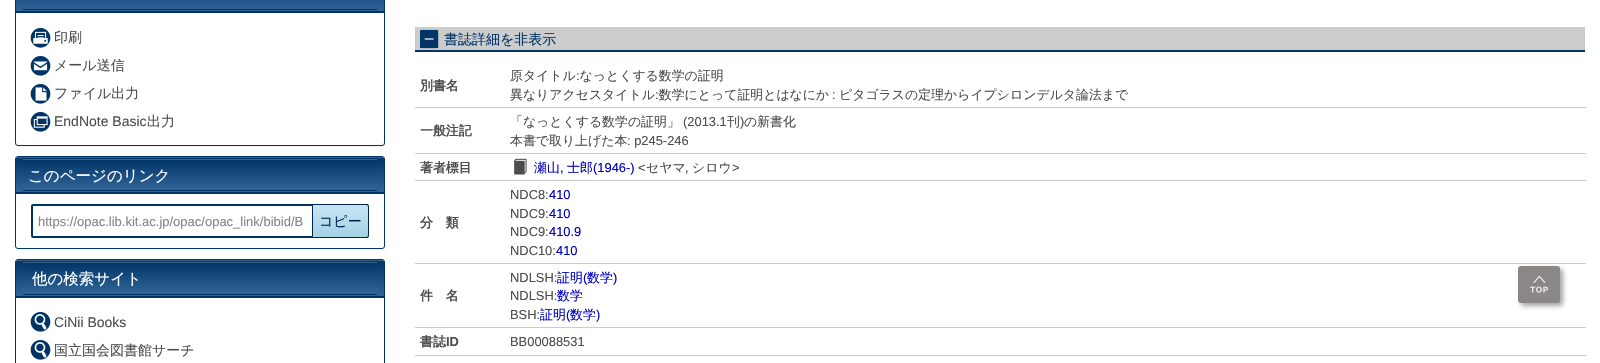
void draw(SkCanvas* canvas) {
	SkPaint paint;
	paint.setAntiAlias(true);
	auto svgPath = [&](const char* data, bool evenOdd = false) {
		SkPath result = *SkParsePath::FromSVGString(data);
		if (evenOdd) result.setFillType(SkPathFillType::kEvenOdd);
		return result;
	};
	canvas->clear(0xffffffff);
	paint.setColor(0x0d000000);
	paint.setMaskFilter(SkMaskFilter::MakeBlur(kNormal_SkBlurStyle, 0.5));
	canvas->drawRoundRect(SkRect::MakeXYWH(15, -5, 370, 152), 3, 3, paint);
	paint.setMaskFilter(nullptr);
	paint.setColor(0xffffffff);
	canvas->drawRoundRect(SkRect::MakeXYWH(15.5, -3.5, 369, 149), 2.5, 2.5, paint);
	paint.setStroke(true);
	paint.setStrokeWidth(1);
	paint.setColor(0xff003366);
	canvas->drawRoundRect(SkRect::MakeXYWH(15.5, -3.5, 369, 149), 2.5, 2.5, paint);
	paint.setStroke(false);
	{
		const SkColor colors[] = {0xff396188, 0xff023568, 0xff316497, 0xff003366};
		const float stops[] = {0.02, 0.03, 0.97, 0.98};
		const SkPoint ends[] = {{200, -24}, {200, 12}};
		paint.setShader(SkGradientShader::MakeLinear(ends, colors, stops, 4, SkTileMode::kClamp));
		paint.setAlpha(255);
	}
	canvas->drawRect(SkRect::MakeXYWH(16, 0, 368, 12), paint);
	paint.setShader(nullptr);
	paint.setColor(0xff003366);
	canvas->drawRect(SkRect::MakeXYWH(16, 12, 368, 1), paint);
	{
		const SkColor colors[] = {0xff396188, 0xff023568, 0xff316497, 0xff003366};
		const float stops[] = {0.02, 0.03, 0.97, 0.98};
		const SkPoint ends[] = {{200, -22}, {200, 10}};
		paint.setShader(SkGradientShader::MakeLinear(ends, colors, stops, 4, SkTileMode::kClamp));
		paint.setAlpha(255);
	}
	canvas->drawRect(SkRect::MakeXYWH(23, 7, 354, 3), paint);
	canvas->drawImageRect(SkImages::DeferredFromEncodedData(SkData::MakeFromFileName("img1.png")), SkRect::MakeXYWH(30, 28, 21, 20), SkSamplingOptions());
	SkFont f1(fontMgr->matchFamilyStyle("WenQuanYi Zen Hei", SkFontStyle(500, SkFontStyle::kNormal_Width, SkFontStyle::kUpright_Slant)), 14);
	f1.setSubpixel(true);
	paint.setShader(nullptr);
	paint.setColor(0xff4d4d4d);
	canvas->drawString("印刷", 54, 42, f1, paint);
	canvas->drawImageRect(SkImages::DeferredFromEncodedData(SkData::MakeFromFileName("img2.png")), SkRect::MakeXYWH(30, 56, 21, 20), SkSamplingOptions());
	canvas->drawString("メール送信", 54, 70, f1, paint);
	canvas->drawImageRect(SkImages::DeferredFromEncodedData(SkData::MakeFromFileName("img3.png")), SkRect::MakeXYWH(30, 84, 21, 20), SkSamplingOptions());
	canvas->drawString("ファイル出力", 54, 98, f1, paint);
	canvas->drawImageRect(SkImages::DeferredFromEncodedData(SkData::MakeFromFileName("img4.png")), SkRect::MakeXYWH(30, 112, 21, 20), SkSamplingOptions());
	SkFont f2(fontMgr->matchFamilyStyle("Liberation Sans", SkFontStyle::Normal()), 14);
	f2.setSubpixel(true);
	canvas->drawString("EndNote Basic", 54, 126, f2, paint);
	canvas->drawString("出力", 147, 126, f1, paint);
	paint.setColor(0x0d000000);
	paint.setMaskFilter(SkMaskFilter::MakeBlur(kNormal_SkBlurStyle, 0.5));
	canvas->drawRoundRect(SkRect::MakeXYWH(15, 157, 370, 93), 3, 3, paint);
	paint.setMaskFilter(nullptr);
	paint.setColor(0xffffffff);
	canvas->drawRoundRect(SkRect::MakeXYWH(15.5, 156.5, 369, 92), 2.5, 2.5, paint);
	paint.setStroke(true);
	paint.setColor(0xff003366);
	canvas->drawRoundRect(SkRect::MakeXYWH(15.5, 156.5, 369, 92), 2.5, 2.5, paint);
	paint.setStroke(false);
	{
		const SkColor colors[] = {0xff396188, 0xff023568, 0xff316497, 0xff003366};
		const float stops[] = {0.02, 0.03, 0.97, 0.98};
		const SkPoint ends[] = {{200, 157}, {200, 193}};
		paint.setShader(SkGradientShader::MakeLinear(ends, colors, stops, 4, SkTileMode::kClamp));
		paint.setAlpha(255);
	}
	canvas->drawPath(svgPath("M17 157H383C383.5 157 384 157.5 384 158V193H16V158C16 157.5 16.5 157 17 157Z"), paint);
	paint.setShader(nullptr);
	paint.setColor(0xff003366);
	canvas->drawRect(SkRect::MakeXYWH(16, 193, 368, 1), paint);
	{
		const SkColor colors[] = {0xff396188, 0xff023568, 0xff316497, 0xff003366};
		const float stops[] = {0.02, 0.03, 0.97, 0.98};
		const SkPoint ends[] = {{200, 159}, {200, 191}};
		paint.setShader(SkGradientShader::MakeLinear(ends, colors, stops, 4, SkTileMode::kClamp));
		paint.setAlpha(255);
	}
	canvas->drawRect(SkRect::MakeXYWH(23, 159, 354, 32), paint);
	SkFont f3(fontMgr->matchFamilyStyle("WenQuanYi Zen Hei", SkFontStyle(500, SkFontStyle::kNormal_Width, SkFontStyle::kUpright_Slant)), 15.5);
	f3.setSubpixel(true);
	paint.setShader(nullptr);
	paint.setColor(0xffffffff);
	canvas->drawString("このページのリンク", 28, 181, f3, paint);
	paint.setStroke(true);
	paint.setStrokeWidth(2);
	paint.setColor(0xff003366);
	canvas->drawRoundRect(SkRect::MakeXYWH(32, 205, 336, 32), 1, 1, paint);
	SkFont f4(fontMgr->matchFamilyStyle("Liberation Sans", SkFontStyle::Normal()), 13);
	f4.setSubpixel(true);
	paint.setStroke(false);
	paint.setColor(0xff858585);
	canvas->drawString("https://opac.lib.kit.ac.jp/opac/opac_link/bibid/B", 38, 226, f4, paint);
	canvas->save();
	canvas->clipPath(svgPath("M312 204H366C367.5 204 369 205.5 369 207V235C369 236.5 367.5 238 366 238H312Z"), true);
	{
		const SkColor colors[] = {0xffc7e5f3, 0xffa4d1e5};
		const float stops[] = {0, 1};
		const SkPoint ends[] = {{341, 205}, {341, 237}};
		paint.setShader(SkGradientShader::MakeLinear(ends, colors, stops, 2, SkTileMode::kClamp));
		paint.setAlpha(255);
	}
	canvas->drawRect(SkRect::MakeXYWH(313, 205, 56, 32), paint);
	canvas->restore();
	paint.setStroke(true);
	paint.setStrokeWidth(1);
	paint.setShader(nullptr);
	paint.setColor(0xff00264d);
	canvas->drawPath(svgPath("M312.5 204.5H366C367.5 204.5 368.5 205.5 368.5 207V235C368.5 236.5 367.5 237.5 366 237.5H312.5Z"), paint);
	paint.setStroke(false);
	canvas->drawString("コピー", 319, 226, f1, paint);
	paint.setStroke(true);
	paint.setColor(0xff003366);
	canvas->drawRoundRect(SkRect::MakeXYWH(15.5, 259.5, 369, 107), 2.5, 2.5, paint);
	paint.setStroke(false);
	{
		const SkColor colors[] = {0xff396188, 0xff023568, 0xff316497, 0xff003366};
		const float stops[] = {0.02, 0.03, 0.97, 0.98};
		const SkPoint ends[] = {{200, 260}, {200, 297}};
		paint.setShader(SkGradientShader::MakeLinear(ends, colors, stops, 4, SkTileMode::kClamp));
		paint.setAlpha(255);
	}
	canvas->drawPath(svgPath("M17 260H383C383.5 260 384 260.5 384 261V297H16V261C16 260.5 16.5 260 17 260Z"), paint);
	paint.setShader(nullptr);
	paint.setColor(0xff003366);
	canvas->drawRect(SkRect::MakeXYWH(16, 297, 368, 1), paint);
	{
		const SkColor colors[] = {0xff396188, 0xff023568, 0xff316497, 0xff003366};
		const float stops[] = {0.02, 0.03, 0.97, 0.98};
		const SkPoint ends[] = {{200, 262}, {200, 295}};
		paint.setShader(SkGradientShader::MakeLinear(ends, colors, stops, 4, SkTileMode::kClamp));
		paint.setAlpha(255);
	}
	canvas->drawRect(SkRect::MakeXYWH(23, 262, 354, 33), paint);
	paint.setShader(nullptr);
	paint.setColor(0xffffffff);
	canvas->drawString("他の検索サイト", 32, 284, f3, paint);
	canvas->drawImageRect(SkImages::DeferredFromEncodedData(SkData::MakeFromFileName("img5.png")), SkRect::MakeXYWH(30, 312, 21, 20), SkSamplingOptions());
	paint.setColor(0xff4d4d4d);
	canvas->drawString("CiNii Books", 54, 327, f2, paint);
	canvas->drawImageRect(SkImages::DeferredFromEncodedData(SkData::MakeFromFileName("img5.png")), SkRect::MakeXYWH(30, 340, 21, 20), SkSamplingOptions());
	canvas->drawString("国立国会図書館サーチ", 54, 355, f1, paint);
	paint.setColor(0xffcccccc);
	canvas->drawRect(SkRect::MakeXYWH(415, 27, 1170, 23), paint);
	paint.setColor(0xff003366);
	canvas->drawRect(SkRect::MakeXYWH(415, 50, 1170, 2), paint);
	canvas->drawImageRect(SkImages::DeferredFromEncodedData(SkData::MakeFromFileName("img6.png")), SkRect::MakeXYWH(420, 29, 19, 20), SkSamplingOptions());
	canvas->drawString("書誌詳細を非表示", 444, 44, f1, paint);
	SkFont f5(fontMgr->matchFamilyStyle("WenQuanYi Zen Hei", SkFontStyle::Bold()), 12.9);
	f5.setSubpixel(true);
	paint.setColor(0xff4d4d4d);
	canvas->drawString("別書名", 420, 90, f5, paint);
	paint.setColor(0xffcccccc);
	canvas->drawRect(SkRect::MakeXYWH(415, 107, 1171, 1), paint);
	SkFont f6(fontMgr->matchFamilyStyle("WenQuanYi Zen Hei", SkFontStyle(500, SkFontStyle::kNormal_Width, SkFontStyle::kUpright_Slant)), 12.9);
	f6.setSubpixel(true);
	paint.setColor(0xff4d4d4d);
	canvas->drawString("原タイトル なっとくする数学の証明", 510, 80, f6, paint);
	SkFont f7(fontMgr->matchFamilyStyle("Liberation Sans", SkFontStyle::Normal()), 12.9);
	f7.setSubpixel(true);
	canvas->drawString(":", 576, 80, f7, paint);
	canvas->drawString("異なりアクセスタイトル 数学にとって証明とはなにか", 510, 99, f6, paint);
	canvas->drawString("ピタゴラスの定理からイプシロンデルタ論法まで", 839, 99, f6, paint);
	canvas->drawString(":", 655, 99, f7, paint);
	canvas->drawString(":", 832, 99, f7, paint);
	canvas->drawString("一般注記", 420, 135, f5, paint);
	paint.setColor(0xffcccccc);
	canvas->drawRect(SkRect::MakeXYWH(415, 153, 1171, 1), paint);
	paint.setColor(0xff4d4d4d);
	canvas->drawString("「なっとくする数学の証明」", 510, 126, f6, paint);
	canvas->drawString("(2013.1", 683, 126, f7, paint);
	canvas->drawString("刊", 727, 126, f6, paint);
	canvas->drawString(")", 740, 126, f7, paint);
	canvas->drawString("の新書化", 744, 126, f6, paint);
	canvas->drawString("本書で取り上げた本", 510, 145, f6, paint);
	canvas->drawString(": p245-246", 627, 145, f7, paint);
	canvas->drawString("著者標目", 420, 172, f5, paint);
	paint.setColor(0xffcccccc);
	canvas->drawRect(SkRect::MakeXYWH(415, 180, 1171, 1), paint);
	canvas->drawImageRect(SkImages::DeferredFromEncodedData(SkData::MakeFromFileName("img7.png")), SkRect::MakeXYWH(514, 158, 13, 17), SkSamplingOptions());
	paint.setColor(0xff0000c0);
	canvas->drawString("瀬山", 534, 172, f6, paint);
	canvas->drawString("士郎", 567, 172, f6, paint);
	canvas->drawString("(1946-)", 593, 172, f7, paint);
	paint.setColor(0xff4d4d4d);
	canvas->drawString("<", 638, 172, f7, paint);
	canvas->drawString("セヤマ", 646, 172, f6, paint);
	canvas->drawString("シロウ", 692, 172, f6, paint);
	canvas->drawString(">", 732, 172, f7, paint);
	paint.setColor(0xff0000c0);
	canvas->drawString(",", 560, 172, f7, paint);
	paint.setColor(0xff4d4d4d);
	canvas->drawString(",", 685, 172, f7, paint);
	canvas->drawString("分　類", 420, 227, f5, paint);
	paint.setColor(0xffcccccc);
	canvas->drawRect(SkRect::MakeXYWH(415, 263, 1171, 1), paint);
	paint.setColor(0xff4d4d4d);
	canvas->drawString("NDC8:", 510, 199, f7, paint);
	paint.setColor(0xff0000c0);
	canvas->drawString("410", 549, 199, f7, paint);
	paint.setColor(0xff4d4d4d);
	canvas->drawString("NDC9:", 510, 218, f7, paint);
	paint.setColor(0xff0000c0);
	canvas->drawString("410", 549, 218, f7, paint);
	paint.setColor(0xff4d4d4d);
	canvas->drawString("NDC9:", 510, 236, f7, paint);
	paint.setColor(0xff0000c0);
	canvas->drawString("410.9", 549, 236, f7, paint);
	paint.setColor(0xff4d4d4d);
	canvas->drawString("NDC10:", 510, 255, f7, paint);
	paint.setColor(0xff0000c0);
	canvas->drawString("410", 556, 255, f7, paint);
	paint.setColor(0xff4d4d4d);
	canvas->drawString("件　名", 420, 300, f5, paint);
	paint.setColor(0xffcccccc);
	canvas->drawRect(SkRect::MakeXYWH(415, 327, 1171, 1), paint);
	paint.setColor(0xff4d4d4d);
	canvas->drawString("NDLSH:", 510, 282, f7, paint);
	paint.setColor(0xff0000c0);
	canvas->drawString("証明", 557, 282, f6, paint);
	canvas->drawString("(", 583, 282, f7, paint);
	canvas->drawString("数学", 587, 282, f6, paint);
	canvas->drawString(")", 613, 282, f7, paint);
	paint.setColor(0xff4d4d4d);
	canvas->drawString("NDLSH:", 510, 300, f7, paint);
	paint.setColor(0xff0000c0);
	canvas->drawString("数学", 557, 300, f6, paint);
	paint.setColor(0xff4d4d4d);
	canvas->drawString("BSH:", 510, 319, f7, paint);
	paint.setColor(0xff0000c0);
	canvas->drawString("証明", 540, 319, f6, paint);
	canvas->drawString("(", 566, 319, f7, paint);
	canvas->drawString("数学", 570, 319, f6, paint);
	canvas->drawString(")", 596, 319, f7, paint);
	paint.setColor(0xff4d4d4d);
	canvas->drawString("書誌", 420, 346, f5, paint);
	SkFont f8(fontMgr->matchFamilyStyle("Liberation Sans", SkFontStyle::Bold()), 12.9);
	f8.setSubpixel(true);
	canvas->drawString("ID", 446, 346, f8, paint);
	paint.setColor(0xffcccccc);
	canvas->drawRect(SkRect::MakeXYWH(415, 355, 1171, 1), paint);
	paint.setColor(0xff4d4d4d);
	canvas->drawString("BB00088531", 510, 346, f7, paint);
	paint.setColor(0x661a1a1a);
	paint.setMaskFilter(SkMaskFilter::MakeBlur(kNormal_SkBlurStyle, 2.5));
	canvas->drawRoundRect(SkRect::MakeXYWH(1521, 269, 42, 37), 3, 3, paint);
	paint.setMaskFilter(nullptr);
	paint.setColor(0xff8b8787);
	canvas->drawRoundRect(SkRect::MakeXYWH(1518, 266, 42, 37), 3, 3, paint);
	canvas->drawImageRect(SkImages::DeferredFromEncodedData(SkData::MakeFromFileName("img8.png")), SkRect::MakeXYWH(1530, 275, 18, 18), SkSamplingOptions());
}
